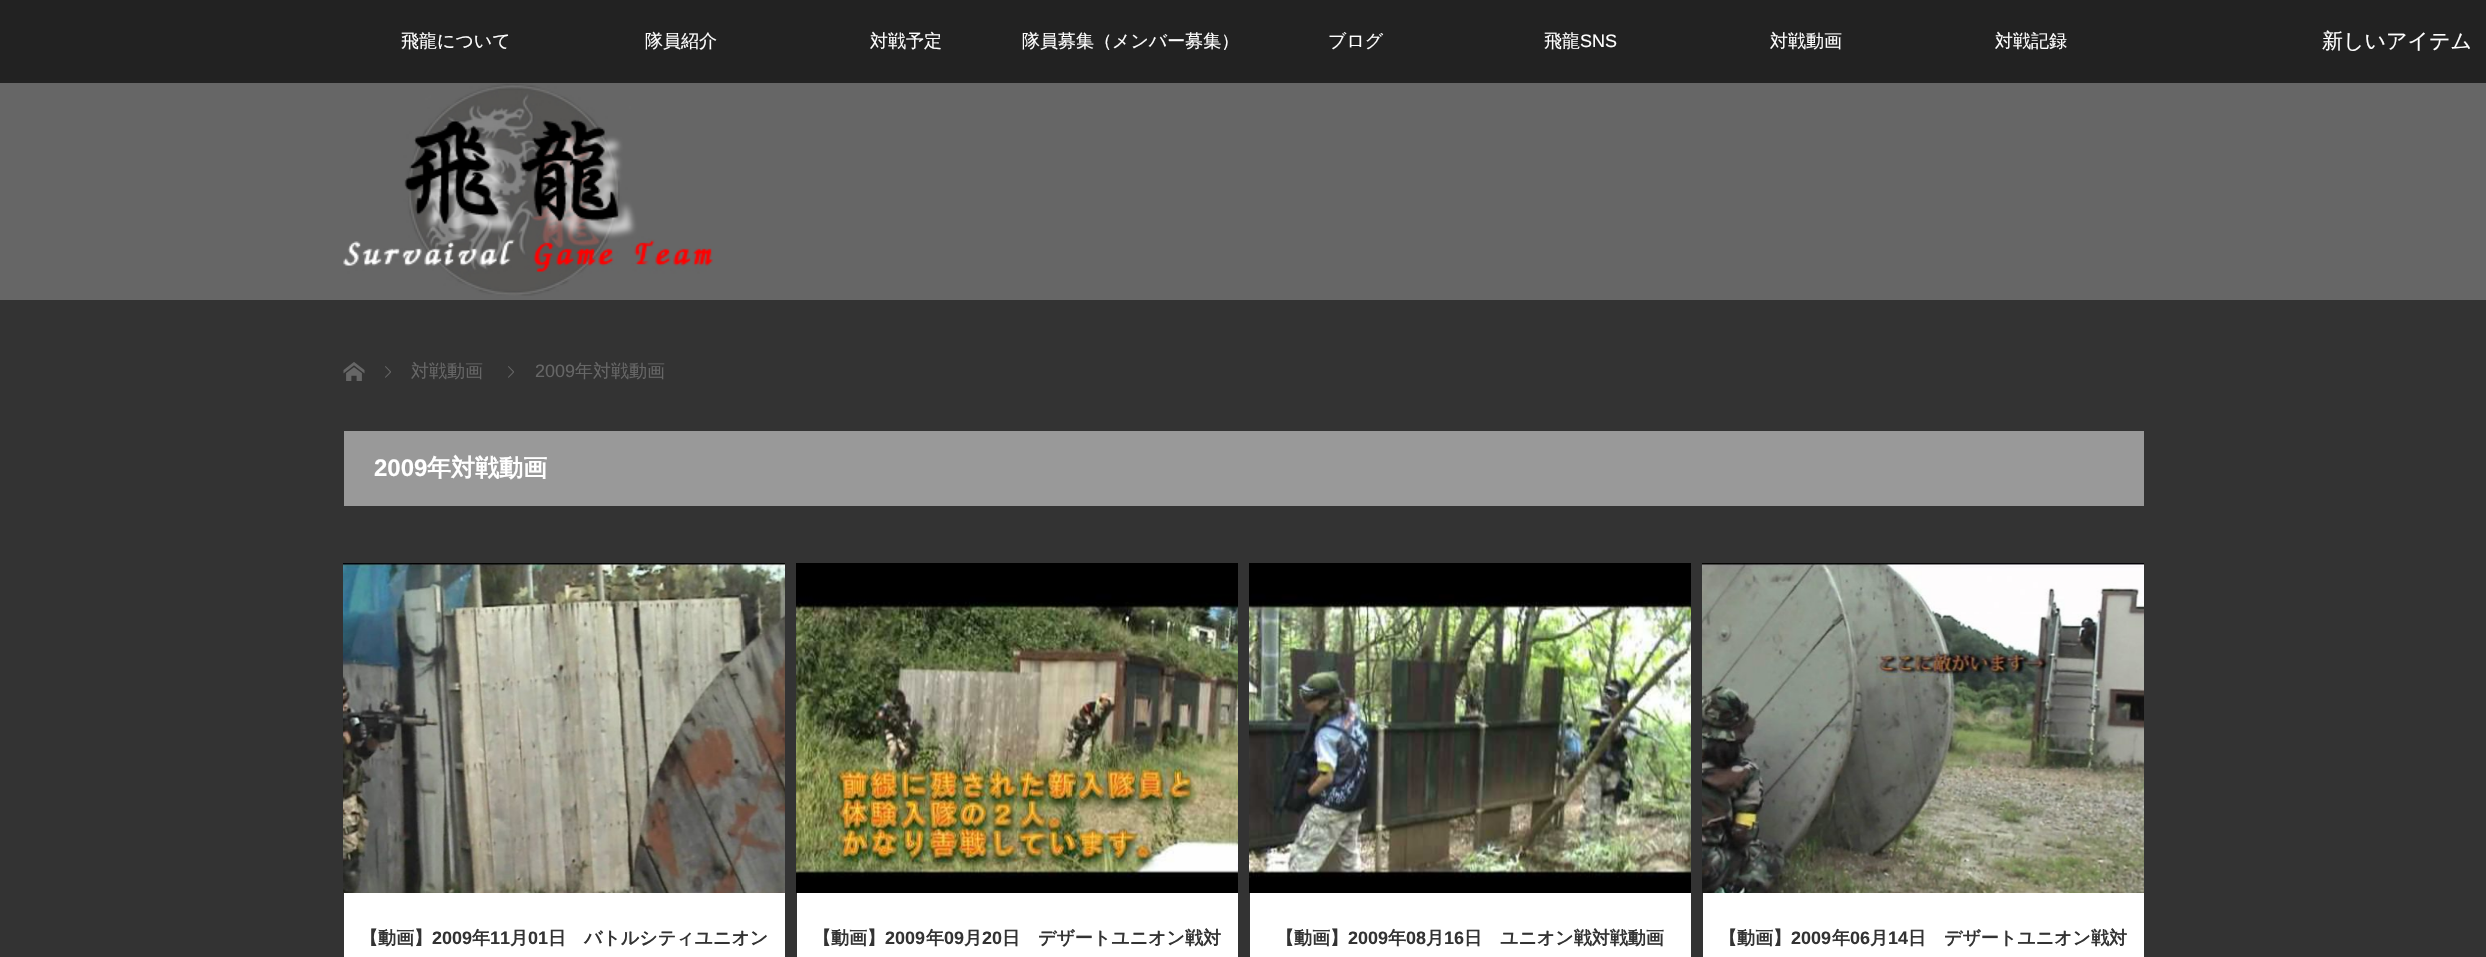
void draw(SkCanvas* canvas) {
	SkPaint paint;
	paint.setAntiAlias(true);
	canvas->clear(0xff666666);
	paint.setColor(0xff222222);
	canvas->drawRect(SkRect::MakeXYWH(0, 0, 2486, 83), paint);
	SkFont f1(fontMgr->matchFamilyStyle("WenQuanYi Zen Hei", SkFontStyle(500, SkFontStyle::kNormal_Width, SkFontStyle::kUpright_Slant)), 18);
	f1.setSubpixel(true);
	paint.setColor(0xffffffff);
	canvas->drawString("飛龍について", 401, 47, f1, paint);
	canvas->drawString("隊員紹介", 645, 47, f1, paint);
	canvas->drawString("対戦予定", 870, 47, f1, paint);
	canvas->drawString("隊員募集（メンバー募集）", 1022, 47, f1, paint);
	canvas->drawString("ブログ", 1328, 47, f1, paint);
	canvas->drawString("飛龍", 1544, 47, f1, paint);
	SkFont f2(fontMgr->matchFamilyStyle("Liberation Sans", SkFontStyle::Normal()), 18);
	f2.setSubpixel(true);
	canvas->drawString("SNS", 1580, 47, f2, paint);
	canvas->drawString("対戦動画", 1770, 47, f1, paint);
	canvas->drawString("対戦記録", 1995, 47, f1, paint);
	SkFont f3(fontMgr->matchFamilyStyle("WenQuanYi Zen Hei", SkFontStyle(500, SkFontStyle::kNormal_Width, SkFontStyle::kUpright_Slant)), 21);
	f3.setSubpixel(true);
	canvas->drawString("新しいアイテム", 2322, 48, f3, paint);
	canvas->drawImageRect(SkImages::DeferredFromEncodedData(SkData::MakeFromFileName("img1.png")), SkRect::MakeXYWH(343, 83, 370, 213), SkSamplingOptions());
	paint.setColor(0xff333333);
	canvas->drawRect(SkRect::MakeXYWH(0, 300, 2486, 657), paint);
	canvas->drawImageRect(SkImages::DeferredFromEncodedData(SkData::MakeFromFileName("img2.png")), SkRect::MakeXYWH(343, 362, 22, 19), SkSamplingOptions());
	canvas->drawImageRect(SkImages::DeferredFromEncodedData(SkData::MakeFromFileName("img3.png")), SkRect::MakeXYWH(385, 366, 6, 12), SkSamplingOptions());
	paint.setColor(0xff666666);
	canvas->drawString("対戦動画", 411, 377, f1, paint);
	canvas->drawImageRect(SkImages::DeferredFromEncodedData(SkData::MakeFromFileName("img3.png")), SkRect::MakeXYWH(508, 366, 6, 12), SkSamplingOptions());
	canvas->drawString("2009", 535, 377, f2, paint);
	canvas->drawString("年対戦動画", 575, 377, f1, paint);
	paint.setColor(0xff999999);
	canvas->drawRect(SkRect::MakeXYWH(344, 431, 1800, 75), paint);
	SkFont f4(fontMgr->matchFamilyStyle("Liberation Sans", SkFontStyle::Bold()), 24);
	f4.setSubpixel(true);
	paint.setColor(0xffffffff);
	canvas->drawString("2009", 374, 476, f4, paint);
	SkFont f5(fontMgr->matchFamilyStyle("WenQuanYi Zen Hei", SkFontStyle::Bold()), 24);
	f5.setSubpixel(true);
	canvas->drawString("年対戦動画", 427, 476, f5, paint);
	canvas->drawRect(SkRect::MakeXYWH(344, 893, 441, 64), paint);
	canvas->drawImageRect(SkImages::DeferredFromEncodedData(SkData::MakeFromFileName("img4.png")), SkRect::MakeXYWH(343, 563, 442, 330), SkSamplingOptions());
	SkFont f6(fontMgr->matchFamilyStyle("WenQuanYi Zen Hei", SkFontStyle::Bold()), 18);
	f6.setSubpixel(true);
	paint.setColor(0xff333333);
	canvas->drawString("【動画】", 360, 944, f6, paint);
	SkFont f7(fontMgr->matchFamilyStyle("Liberation Sans", SkFontStyle::Bold()), 18);
	f7.setSubpixel(true);
	canvas->drawString("2009", 432, 944, f7, paint);
	canvas->drawString("年", 472, 944, f6, paint);
	canvas->drawString("11", 490, 944, f7, paint);
	canvas->drawString("月", 510, 944, f6, paint);
	canvas->drawString("01", 528, 944, f7, paint);
	canvas->drawString("日　バトルシティユニオン", 548, 944, f6, paint);
	paint.setColor(0xffffffff);
	canvas->drawRect(SkRect::MakeXYWH(797, 893, 441, 64), paint);
	canvas->drawImageRect(SkImages::DeferredFromEncodedData(SkData::MakeFromFileName("img5.png")), SkRect::MakeXYWH(796, 563, 442, 330), SkSamplingOptions());
	paint.setColor(0xff333333);
	canvas->drawString("【動画】", 813, 944, f6, paint);
	canvas->drawString("2009", 885, 944, f7, paint);
	canvas->drawString("年", 926, 944, f6, paint);
	canvas->drawString("09", 944, 944, f7, paint);
	canvas->drawString("月", 964, 944, f6, paint);
	canvas->drawString("20", 982, 944, f7, paint);
	canvas->drawString("日　デザートユニオン戦対", 1002, 944, f6, paint);
	paint.setColor(0xffffffff);
	canvas->drawRect(SkRect::MakeXYWH(1250, 893, 441, 64), paint);
	canvas->drawImageRect(SkImages::DeferredFromEncodedData(SkData::MakeFromFileName("img6.png")), SkRect::MakeXYWH(1249, 563, 442, 330), SkSamplingOptions());
	paint.setColor(0xff333333);
	canvas->drawString("【動画】", 1276, 944, f6, paint);
	canvas->drawString("2009", 1348, 944, f7, paint);
	canvas->drawString("年", 1388, 944, f6, paint);
	canvas->drawString("08", 1406, 944, f7, paint);
	canvas->drawString("月", 1426, 944, f6, paint);
	canvas->drawString("16", 1444, 944, f7, paint);
	canvas->drawString("日　ユニオン戦対戦動画", 1464, 944, f6, paint);
	paint.setColor(0xffffffff);
	canvas->drawRect(SkRect::MakeXYWH(1703, 893, 441, 64), paint);
	canvas->drawImageRect(SkImages::DeferredFromEncodedData(SkData::MakeFromFileName("img7.png")), SkRect::MakeXYWH(1702, 563, 442, 330), SkSamplingOptions());
	paint.setColor(0xff333333);
	canvas->drawString("【動画】", 1719, 944, f6, paint);
	canvas->drawString("2009", 1791, 944, f7, paint);
	canvas->drawString("年", 1832, 944, f6, paint);
	canvas->drawString("06", 1850, 944, f7, paint);
	canvas->drawString("月", 1870, 944, f6, paint);
	canvas->drawString("14", 1888, 944, f7, paint);
	canvas->drawString("日　デザートユニオン戦対", 1908, 944, f6, paint);
}
